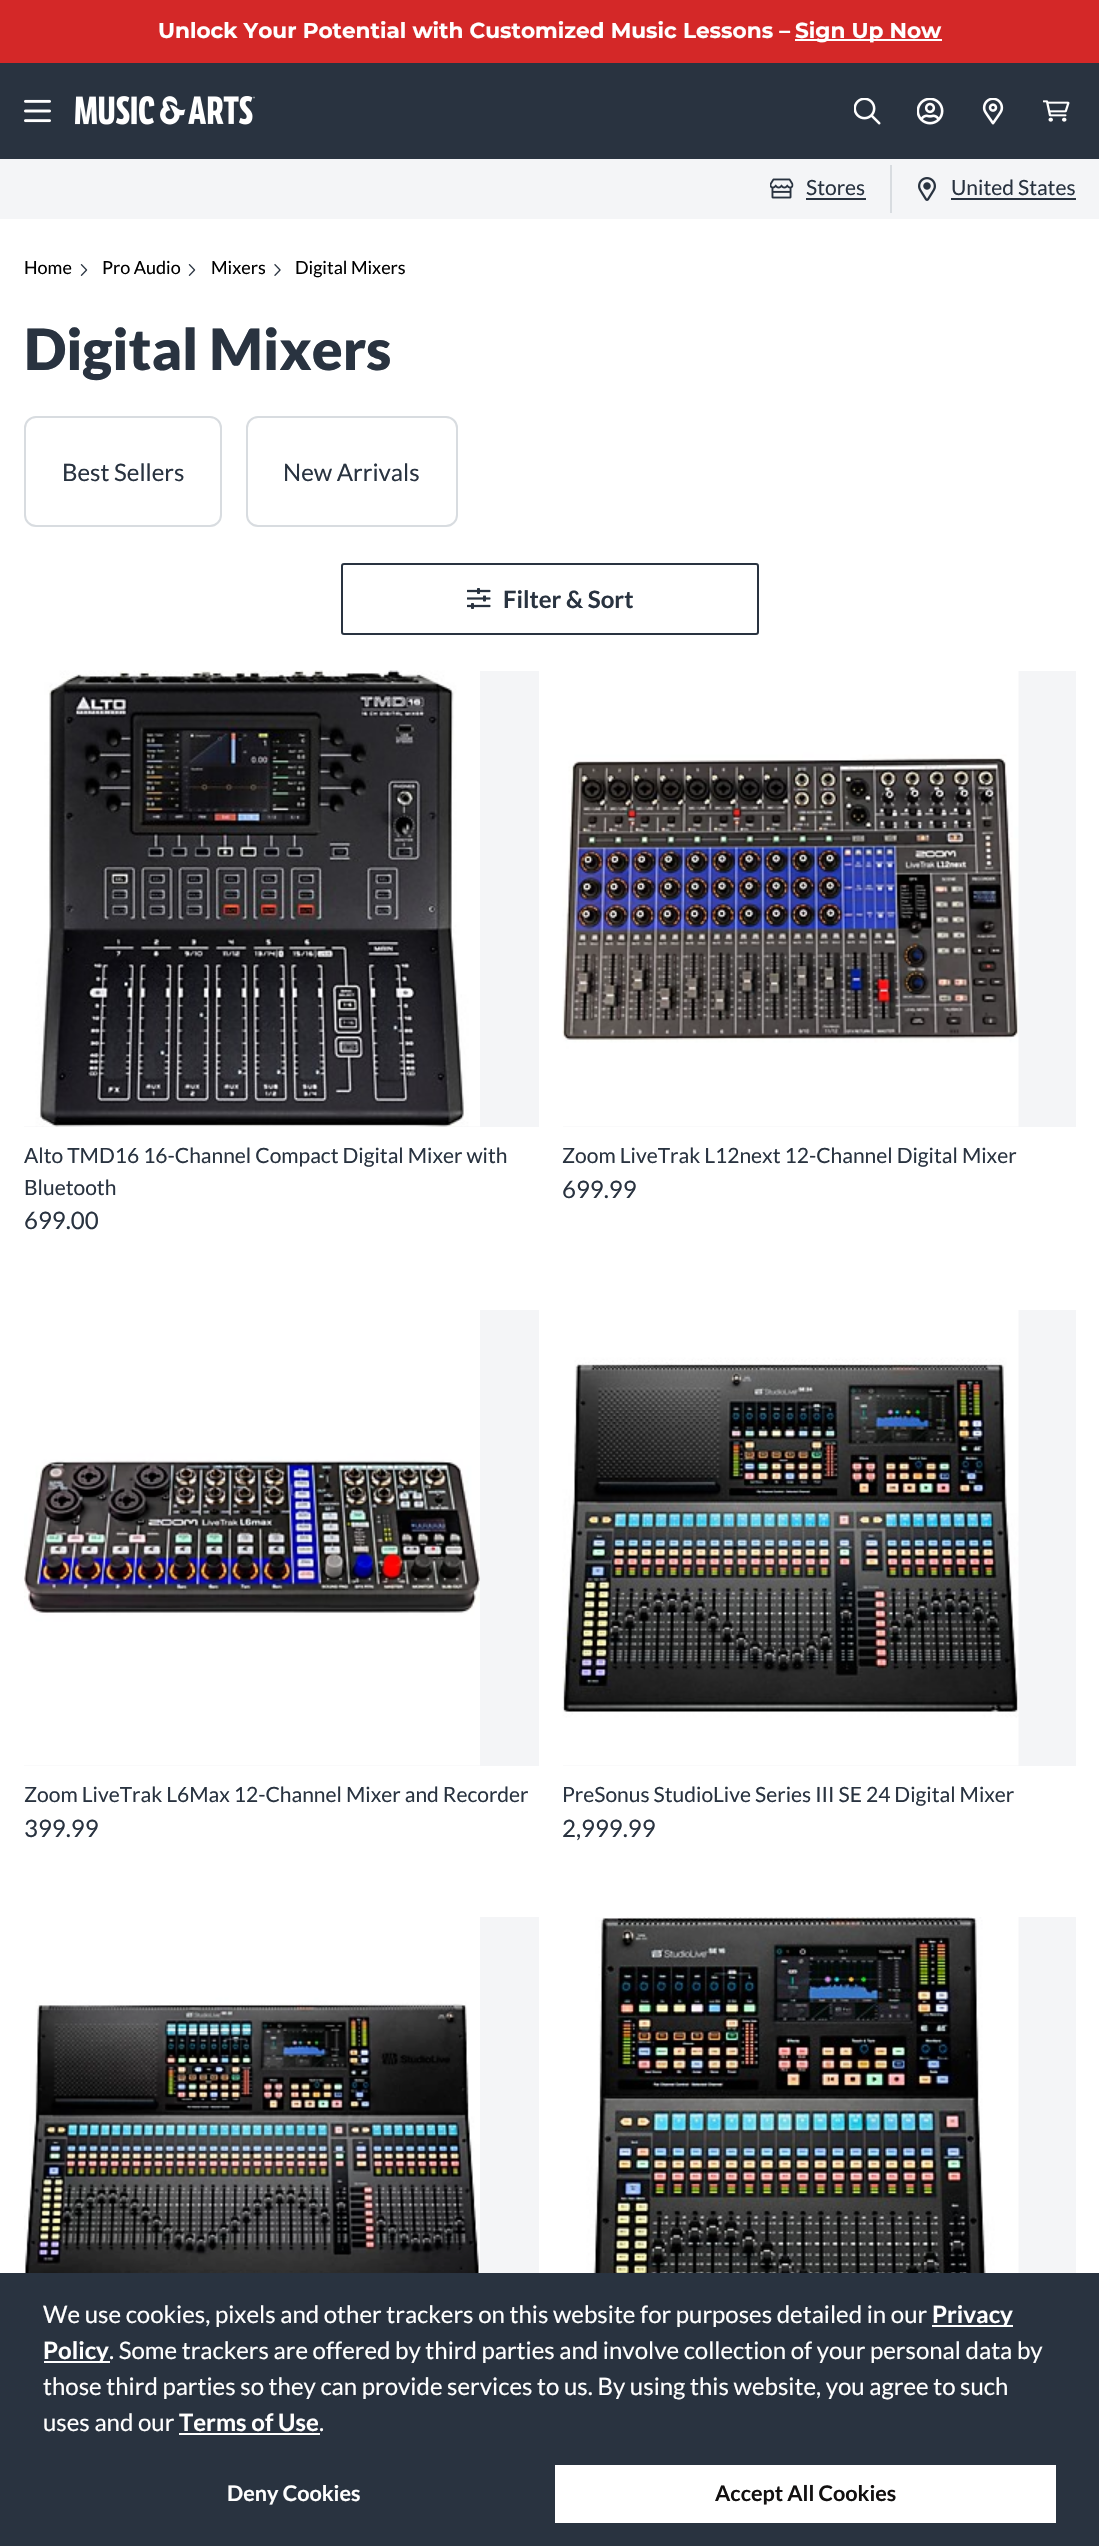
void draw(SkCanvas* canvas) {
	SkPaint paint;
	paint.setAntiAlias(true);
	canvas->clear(0xffffffff);
	paint.setColor(0xffd42828);
	canvas->drawRect(SkRect::MakeXYWH(0, 0, 1099, 63), paint);
	SkFont f1(fontMgr->matchFamilyStyle("Montserrat", SkFontStyle::Bold()), 21.6);
	f1.setSubpixel(true);
	paint.setColor(0xffffffff);
	canvas->drawString("Unlock Your Potential with Customized Music Lessons –", 158, 38, f1, paint);
	canvas->drawRect(SkRect::MakeXYWH(795, 39, 147, 2), paint);
	canvas->drawString("Sign Up Now", 795, 38, f1, paint);
	paint.setColor(0xff293340);
	canvas->drawRect(SkRect::MakeXYWH(0, 63, 1099, 96), paint);
	canvas->drawImageRect(SkImages::DeferredFromEncodedData(SkData::MakeFromFileName("img1.png")), SkRect::MakeXYWH(24, 99, 27, 24), SkSamplingOptions());
	canvas->drawImageRect(SkImages::DeferredFromEncodedData(SkData::MakeFromFileName("img2.png")), SkRect::MakeXYWH(75, 96, 180, 29), SkSamplingOptions());
	canvas->drawImageRect(SkImages::DeferredFromEncodedData(SkData::MakeFromFileName("img3.png")), SkRect::MakeXYWH(854, 98, 27, 27), SkSamplingOptions());
	canvas->drawImageRect(SkImages::DeferredFromEncodedData(SkData::MakeFromFileName("img4.png")), SkRect::MakeXYWH(917, 98, 27, 27), SkSamplingOptions());
	canvas->drawImageRect(SkImages::DeferredFromEncodedData(SkData::MakeFromFileName("img5.png")), SkRect::MakeXYWH(982, 98, 22, 27), SkSamplingOptions());
	canvas->drawImageRect(SkImages::DeferredFromEncodedData(SkData::MakeFromFileName("img6.png")), SkRect::MakeXYWH(1043, 100, 27, 22), SkSamplingOptions());
	paint.setColor(0xfff4f5f7);
	canvas->drawRect(SkRect::MakeXYWH(0, 159, 1099, 60), paint);
	canvas->drawImageRect(SkImages::DeferredFromEncodedData(SkData::MakeFromFileName("img7.png")), SkRect::MakeXYWH(770, 178, 24, 21), SkSamplingOptions());
	SkFont f2(fontMgr->matchFamilyStyle("Lato", SkFontStyle::Normal()), 21);
	f2.setSubpixel(true);
	paint.setColor(0xff293340);
	canvas->drawString("Stores", 806, 195, f2, paint);
	canvas->drawRect(SkRect::MakeXYWH(806, 198, 60, 2), paint);
	paint.setColor(0xffd8dce0);
	canvas->drawRect(SkRect::MakeXYWH(890, 165, 2, 48), paint);
	canvas->drawImageRect(SkImages::DeferredFromEncodedData(SkData::MakeFromFileName("img8.png")), SkRect::MakeXYWH(918, 177, 18, 24), SkSamplingOptions());
	paint.setColor(0xff293340);
	canvas->drawString("United States", 951, 195, f2, paint);
	canvas->drawRect(SkRect::MakeXYWH(951, 198, 125, 2), paint);
	SkFont f3(fontMgr->matchFamilyStyle("Lato", SkFontStyle::Normal()), 18);
	f3.setSubpixel(true);
	paint.setColor(0xff000000);
	canvas->drawString("Home", 24, 274, f3, paint);
	canvas->drawImageRect(SkImages::DeferredFromEncodedData(SkData::MakeFromFileName("img9.png")), SkRect::MakeXYWH(80, 264, 8, 12), SkSamplingOptions());
	canvas->drawString("Pro Audio", 102, 274, f3, paint);
	canvas->drawImageRect(SkImages::DeferredFromEncodedData(SkData::MakeFromFileName("img9.png")), SkRect::MakeXYWH(188, 264, 8, 12), SkSamplingOptions());
	canvas->drawString("Mixers", 211, 274, f3, paint);
	canvas->drawImageRect(SkImages::DeferredFromEncodedData(SkData::MakeFromFileName("img10.png")), SkRect::MakeXYWH(274, 264, 7, 12), SkSamplingOptions());
	canvas->drawString("Digital Mixers", 295, 274, f3, paint);
	SkFont f4(fontMgr->matchFamilyStyle("Lato", SkFontStyle(900, SkFontStyle::kNormal_Width, SkFontStyle::kUpright_Slant)), 57);
	f4.setSubpixel(true);
	paint.setColor(0xff293340);
	canvas->drawString("Digital Mixers", 24, 370, f4, paint);
	paint.setStroke(true);
	paint.setStrokeWidth(2);
	paint.setColor(0xffd8dce0);
	canvas->drawRoundRect(SkRect::MakeXYWH(25, 417, 196, 109), 11, 11, paint);
	SkFont f5(fontMgr->matchFamilyStyle("Lato", SkFontStyle::Normal()), 24);
	f5.setSubpixel(true);
	paint.setStroke(false);
	paint.setColor(0xff293340);
	canvas->drawString("Best Sellers", 62, 481, f5, paint);
	paint.setStroke(true);
	paint.setColor(0xffd8dce0);
	canvas->drawRoundRect(SkRect::MakeXYWH(247, 417, 210, 109), 11, 11, paint);
	paint.setStroke(false);
	paint.setColor(0xff293340);
	canvas->drawString("New Arrivals", 283, 481, f5, paint);
	paint.setStroke(true);
	canvas->drawRoundRect(SkRect::MakeXYWH(342, 564, 416, 70), 2, 2, paint);
	canvas->drawImageRect(SkImages::DeferredFromEncodedData(SkData::MakeFromFileName("img11.png")), SkRect::MakeXYWH(467, 588, 24, 21), SkSamplingOptions());
	SkFont f6(fontMgr->matchFamilyStyle("Lato", SkFontStyle::Bold()), 24);
	f6.setSubpixel(true);
	paint.setStroke(false);
	canvas->drawString("Filter & Sort", 503, 608, f6, paint);
	paint.setColor(0xfff4f5f7);
	canvas->drawRect(SkRect::MakeXYWH(24, 671, 515, 456), paint);
	canvas->drawImageRect(SkImages::DeferredFromEncodedData(SkData::MakeFromFileName("img12.png")), SkRect::MakeXYWH(24, 670, 456, 457), SkSamplingOptions());
	paint.setColor(0xff293340);
	canvas->drawString("Alto TMD16 16-Channel Compact Digital Mixer with", 24, 1163, f2, paint);
	canvas->drawString("Bluetooth", 24, 1195, f2, paint);
	canvas->drawString("699.00", 24, 1229, f5, paint);
	paint.setColor(0xfff4f5f7);
	canvas->drawRect(SkRect::MakeXYWH(563, 671, 513, 456), paint);
	canvas->drawImageRect(SkImages::DeferredFromEncodedData(SkData::MakeFromFileName("img13.png")), SkRect::MakeXYWH(562, 671, 457, 456), SkSamplingOptions());
	paint.setColor(0xff293340);
	canvas->drawString("Zoom LiveTrak L12next 12-Channel Digital Mixer", 562, 1163, f2, paint);
	canvas->drawString("699.99", 562, 1198, f5, paint);
	paint.setColor(0xfff4f5f7);
	canvas->drawRect(SkRect::MakeXYWH(24, 1310, 515, 456), paint);
	canvas->drawImageRect(SkImages::DeferredFromEncodedData(SkData::MakeFromFileName("img14.png")), SkRect::MakeXYWH(24, 1310, 456, 456), SkSamplingOptions());
	paint.setColor(0xff293340);
	canvas->drawString("Zoom LiveTrak L6Max 12-Channel Mixer and Recorder", 24, 1802, f2, paint);
	canvas->drawString("399.99", 24, 1837, f5, paint);
	paint.setColor(0xfff4f5f7);
	canvas->drawRect(SkRect::MakeXYWH(563, 1310, 513, 456), paint);
	canvas->drawImageRect(SkImages::DeferredFromEncodedData(SkData::MakeFromFileName("img15.png")), SkRect::MakeXYWH(562, 1310, 457, 456), SkSamplingOptions());
	paint.setColor(0xff293340);
	canvas->drawString("PreSonus StudioLive Series III SE 24 Digital Mixer", 562, 1802, f2, paint);
	canvas->drawString("2,999.99", 562, 1837, f5, paint);
	paint.setColor(0xfff4f5f7);
	canvas->drawRect(SkRect::MakeXYWH(480, 1917, 59, 356), paint);
	canvas->drawImageRect(SkImages::DeferredFromEncodedData(SkData::MakeFromFileName("img16.png")), SkRect::MakeXYWH(24, 1917, 456, 356), SkSamplingOptions());
	canvas->drawRect(SkRect::MakeXYWH(1018, 1917, 58, 356), paint);
	canvas->drawImageRect(SkImages::DeferredFromEncodedData(SkData::MakeFromFileName("img17.png")), SkRect::MakeXYWH(563, 1917, 456, 356), SkSamplingOptions());
	paint.setColor(0xff293340);
	canvas->drawRect(SkRect::MakeXYWH(0, 2273, 1099, 273), paint);
	paint.setColor(0xffffffff);
	canvas->drawString("We use cookies, pixels and other trackers on this website for purposes detailed in our", 43, 2323, f5, paint);
	canvas->drawRect(SkRect::MakeXYWH(932, 2325, 81, 2), paint);
	canvas->drawString("Privacy", 932, 2323, f6, paint);
	canvas->drawRect(SkRect::MakeXYWH(44, 2361, 66, 2), paint);
	canvas->drawString("Policy", 43, 2359, f6, paint);
	canvas->drawString(". Some trackers are offered by third parties and involve collection of your personal data by", 109, 2359, f5, paint);
	canvas->drawString("those third parties so they can provide services to us. By using this website, you agree to such", 43, 2395, f5, paint);
	canvas->drawString("uses and our", 43, 2431, f5, paint);
	canvas->drawString("Terms of Use", 179, 2431, f6, paint);
	canvas->drawRect(SkRect::MakeXYWH(179, 2433, 141, 2), paint);
	canvas->drawString(".", 319, 2431, f5, paint);
	SkFont f7(fontMgr->matchFamilyStyle("Lato", SkFontStyle::Bold()), 21.6);
	f7.setSubpixel(true);
	canvas->drawString("Deny Cookies", 227, 2501, f7, paint);
	canvas->drawRect(SkRect::MakeXYWH(555, 2465, 501, 58), paint);
	paint.setColor(0xff121010);
	canvas->drawString("Accept All Cookies", 715, 2501, f7, paint);
}
